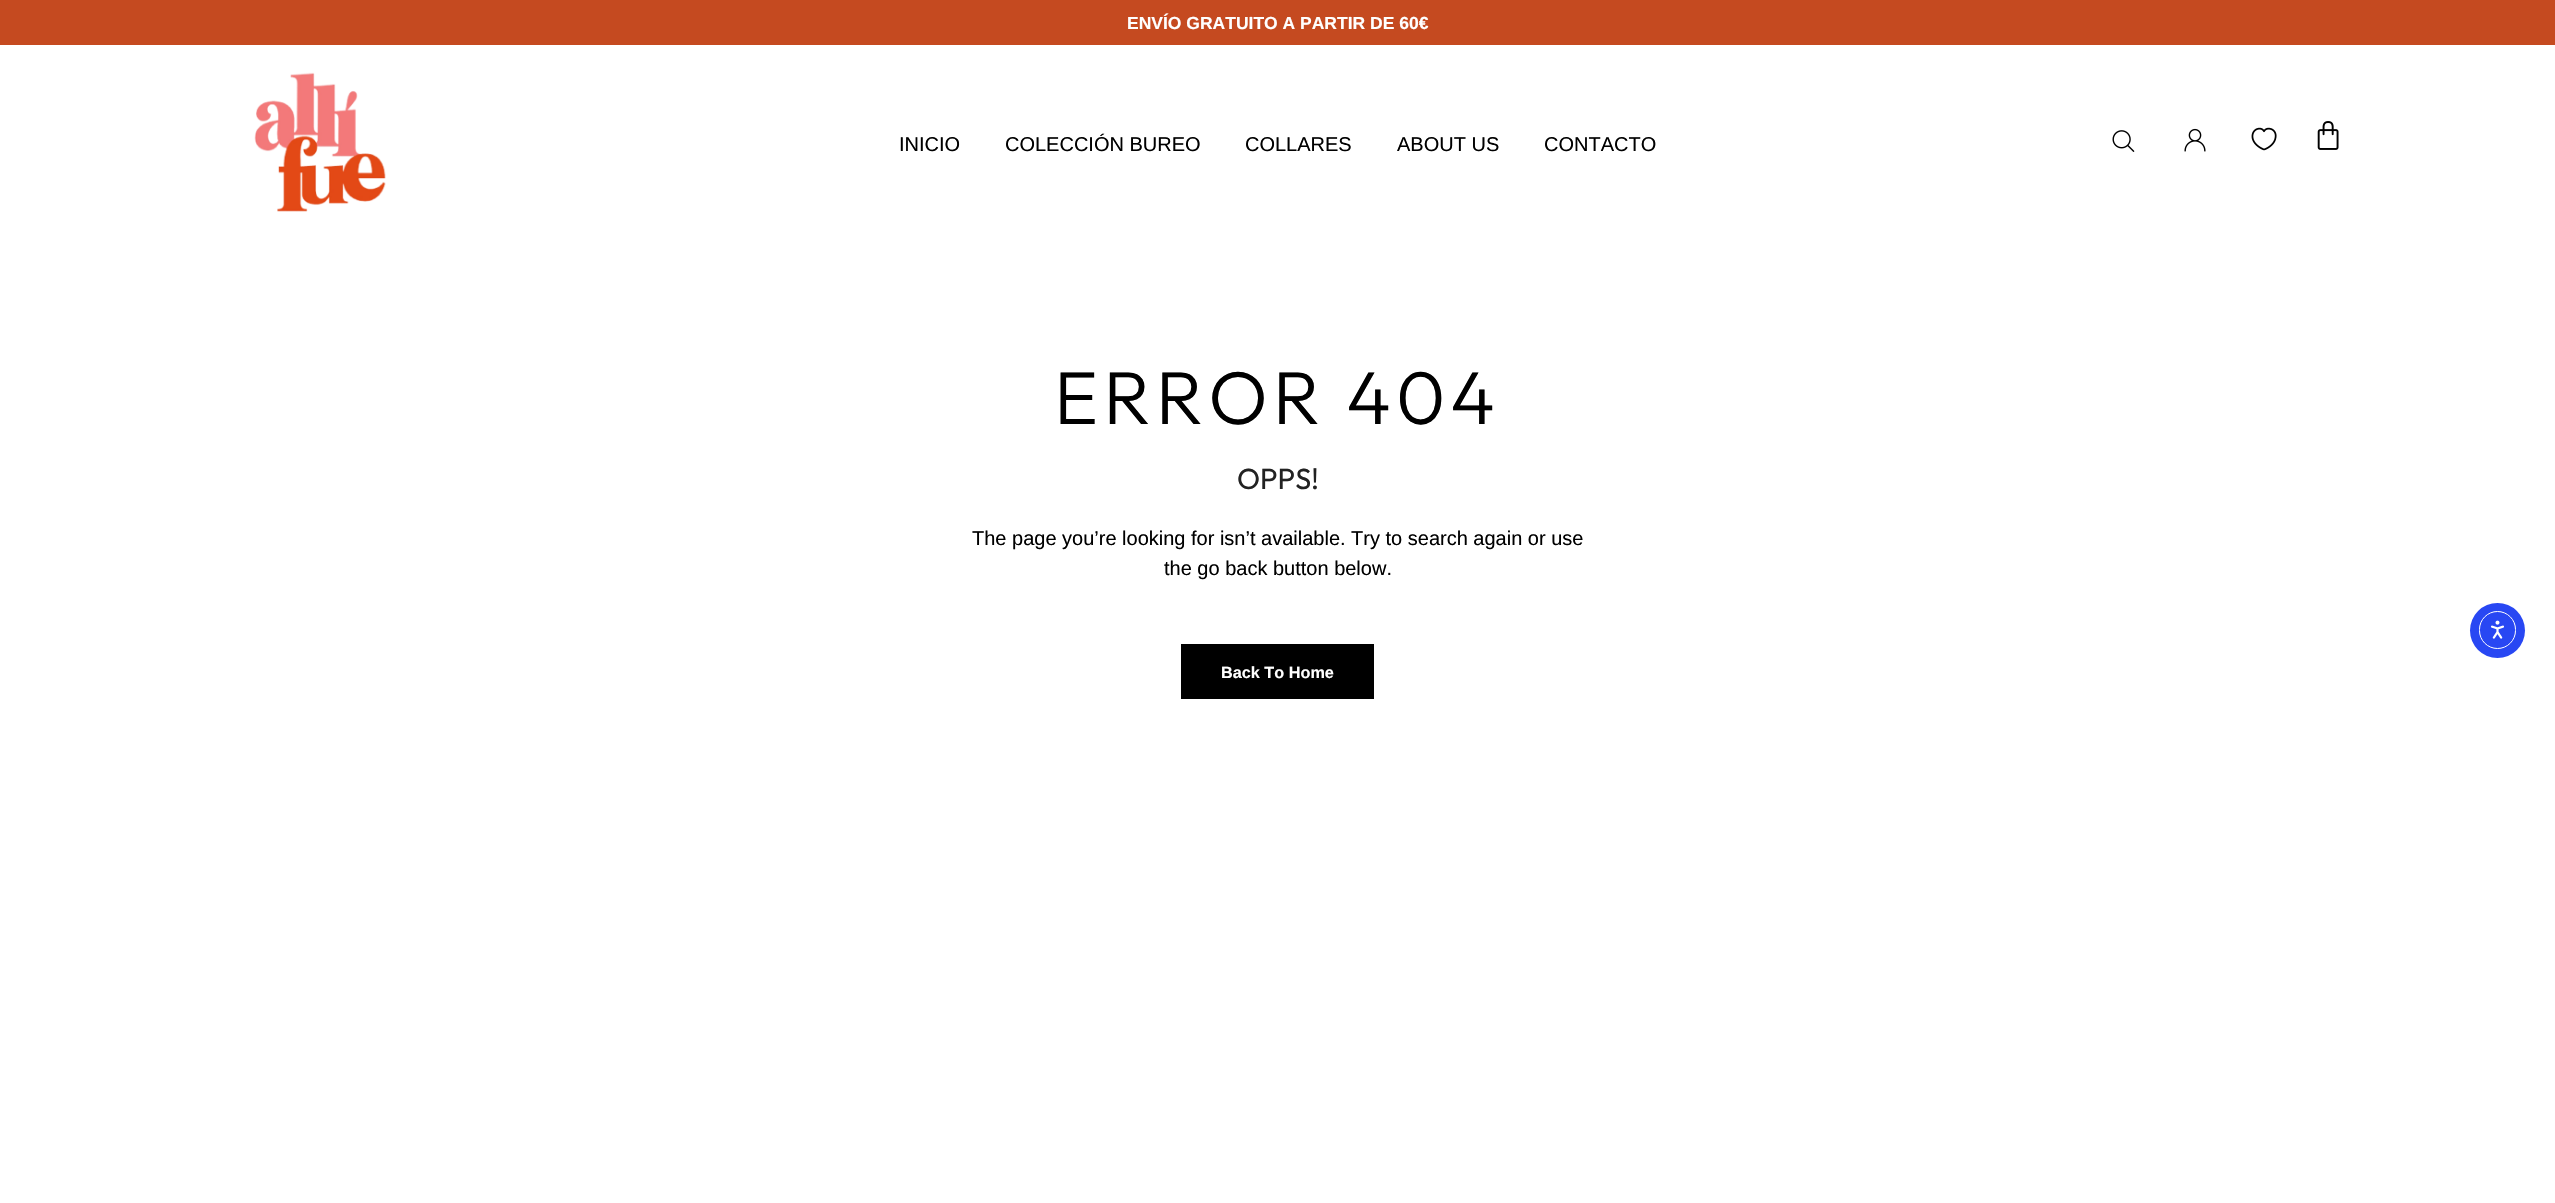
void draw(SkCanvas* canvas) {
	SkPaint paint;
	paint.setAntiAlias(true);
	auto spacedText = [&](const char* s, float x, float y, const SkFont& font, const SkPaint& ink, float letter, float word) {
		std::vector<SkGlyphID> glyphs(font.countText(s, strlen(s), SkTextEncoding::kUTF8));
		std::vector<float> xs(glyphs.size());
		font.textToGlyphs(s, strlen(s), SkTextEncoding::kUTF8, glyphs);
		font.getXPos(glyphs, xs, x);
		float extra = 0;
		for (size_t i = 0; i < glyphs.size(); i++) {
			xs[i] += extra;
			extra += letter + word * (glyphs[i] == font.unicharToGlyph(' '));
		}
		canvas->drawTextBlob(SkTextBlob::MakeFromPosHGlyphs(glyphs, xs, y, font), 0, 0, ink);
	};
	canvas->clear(0xffffffff);
	paint.setColor(0xffc54a20);
	canvas->drawRect(SkRect::MakeXYWH(0, 0, 2555, 45), paint);
	SkFont f1(fontMgr->matchFamilyStyle("Liberation Sans", SkFontStyle::Bold()), 17.5);
	f1.setSubpixel(true);
	paint.setColor(0xffffffff);
	canvas->drawString("ENVÍO GRATUITO A PARTIR DE 60€", 1127, 29, f1, paint);
	canvas->drawImageRect(SkImages::DeferredFromEncodedData(SkData::MakeFromFileName("img1.png")), SkRect::MakeXYWH(254, 72, 132, 140), SkSamplingOptions());
	SkFont f2(fontMgr->matchFamilyStyle("Liberation Sans", SkFontStyle::Normal()), 20);
	f2.setSubpixel(true);
	paint.setColor(0xff000000);
	canvas->drawString("INICIO", 899, 151, f2, paint);
	canvas->drawString("COLECCIÓN BUREO", 1005, 151, f2, paint);
	canvas->drawString("COLLARES", 1245, 151, f2, paint);
	canvas->drawString("ABOUT US", 1397, 151, f2, paint);
	canvas->drawString("CONTACTO", 1544, 151, f2, paint);
	canvas->drawImageRect(SkImages::DeferredFromEncodedData(SkData::MakeFromFileName("img2.png")), SkRect::MakeXYWH(2112, 130, 23, 22), SkSamplingOptions());
	canvas->drawImageRect(SkImages::DeferredFromEncodedData(SkData::MakeFromFileName("img3.png")), SkRect::MakeXYWH(2184, 128, 22, 24), SkSamplingOptions());
	canvas->drawImageRect(SkImages::DeferredFromEncodedData(SkData::MakeFromFileName("img4.png")), SkRect::MakeXYWH(2251, 127, 26, 24), SkSamplingOptions());
	canvas->drawImageRect(SkImages::DeferredFromEncodedData(SkData::MakeFromFileName("img5.png")), SkRect::MakeXYWH(2317, 121, 22, 29), SkSamplingOptions());
	SkFont f3(fontMgr->matchFamilyStyle("Outfit", SkFontStyle(300, SkFontStyle::kNormal_Width, SkFontStyle::kUpright_Slant)), 75);
	f3.setSubpixel(true);
	spacedText("ERROR 404", 1054, 424, f3, paint, 5, 0);
	SkFont f4(fontMgr->matchFamilyStyle("Outfit", SkFontStyle::Normal()), 29);
	f4.setSubpixel(true);
	paint.setColor(0xff222222);
	canvas->drawString("OPPS!", 1237, 489, f4, paint);
	paint.setColor(0xff000000);
	canvas->drawString("The page you’re looking for isn’t available. Try to search again or use", 972, 545, f2, paint);
	canvas->drawString("the go back button below.", 1164, 575, f2, paint);
	canvas->drawRect(SkRect::MakeXYWH(1181, 644, 193, 55), paint);
	SkFont f5(fontMgr->matchFamilyStyle("Liberation Sans", SkFontStyle::Bold()), 16.25);
	f5.setSubpixel(true);
	paint.setColor(0xffffffff);
	canvas->drawString("Back To Home", 1221, 678, f5, paint);
	paint.setColor(0xff2847f3);
	canvas->drawCircle(2497.5, 630.5, 27.5, paint);
	paint.setStroke(true);
	paint.setStrokeWidth(1);
	paint.setColor(0xffffffff);
	canvas->drawRoundRect(SkRect::MakeXYWH(2479.5, 611.5, 36, 37), 18, 18, paint);
	canvas->drawImageRect(SkImages::DeferredFromEncodedData(SkData::MakeFromFileName("img6.png")), SkRect::MakeXYWH(2490, 620, 14, 19), SkSamplingOptions());
}
